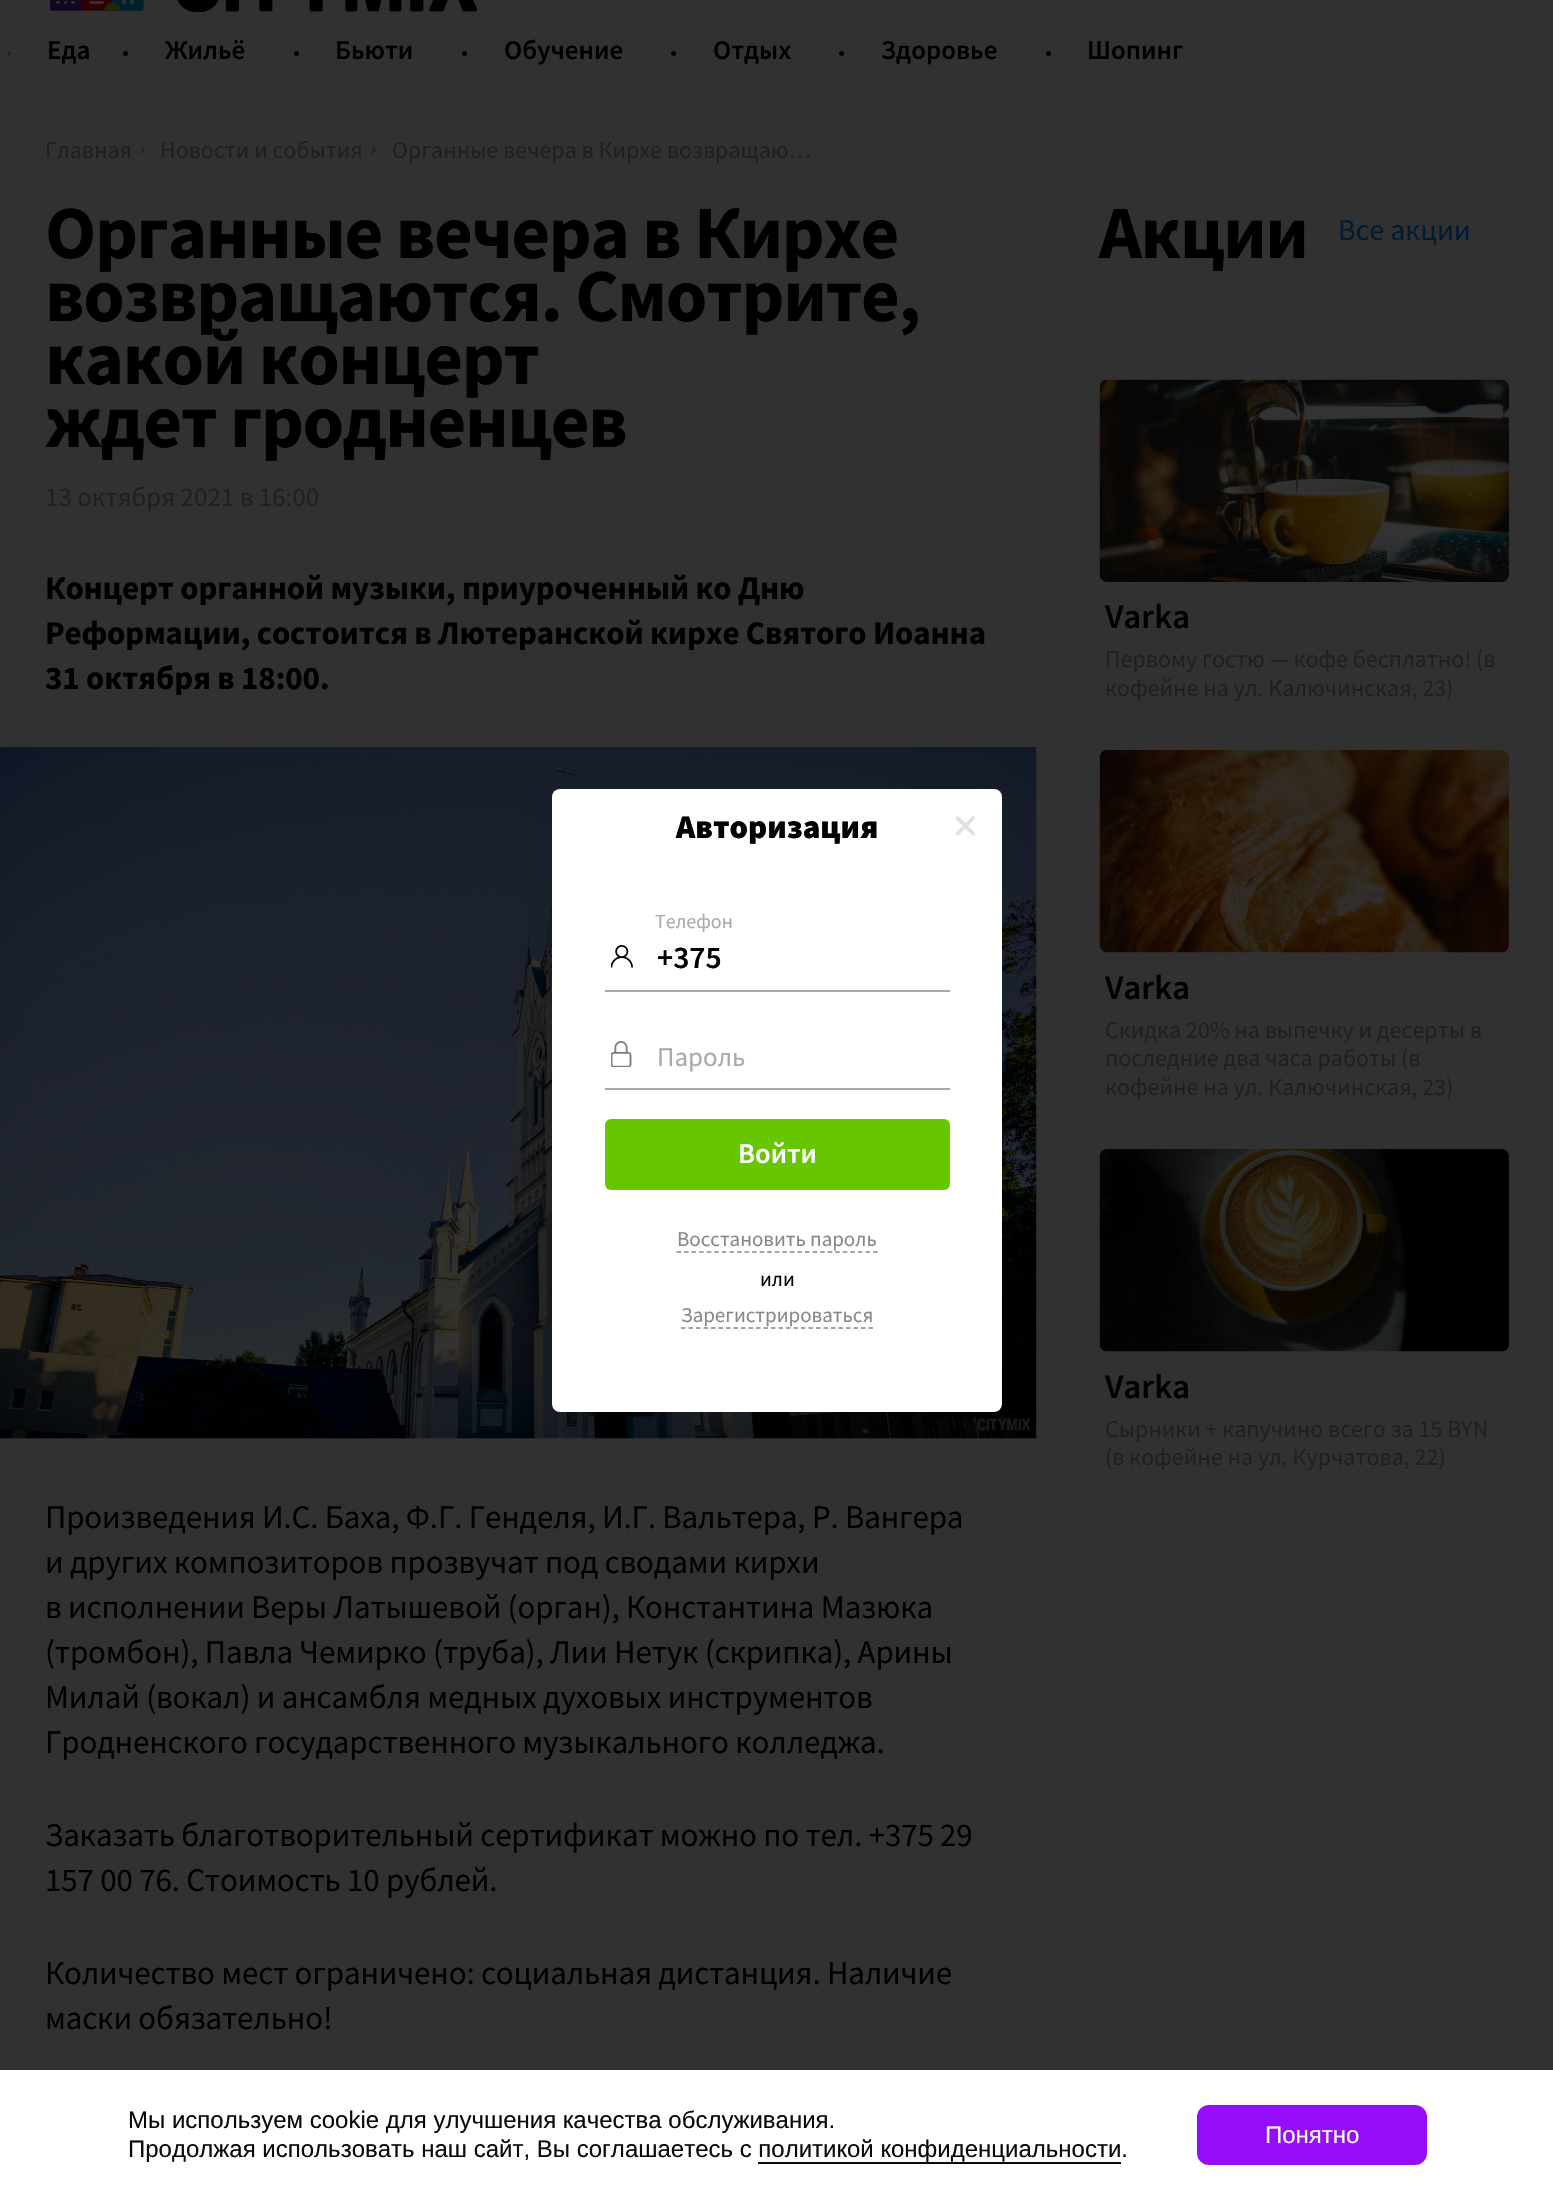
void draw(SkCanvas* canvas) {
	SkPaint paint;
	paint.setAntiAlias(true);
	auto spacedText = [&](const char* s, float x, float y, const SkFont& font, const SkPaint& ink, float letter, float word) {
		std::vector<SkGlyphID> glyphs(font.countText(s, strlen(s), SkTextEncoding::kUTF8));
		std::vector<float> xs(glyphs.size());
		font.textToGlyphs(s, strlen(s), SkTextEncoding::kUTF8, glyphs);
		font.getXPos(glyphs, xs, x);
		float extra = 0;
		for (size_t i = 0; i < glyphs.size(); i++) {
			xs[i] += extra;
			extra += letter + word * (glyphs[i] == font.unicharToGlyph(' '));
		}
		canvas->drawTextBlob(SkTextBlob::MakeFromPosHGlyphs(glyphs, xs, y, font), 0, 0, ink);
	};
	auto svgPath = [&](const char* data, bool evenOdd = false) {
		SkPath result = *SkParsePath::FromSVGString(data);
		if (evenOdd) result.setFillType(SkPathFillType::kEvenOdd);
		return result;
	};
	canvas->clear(0xff313131);
	canvas->drawImageRect(SkImages::DeferredFromEncodedData(SkData::MakeFromFileName("img1.png")), SkRect::MakeXYWH(50, 0, 94, 11), SkSamplingOptions());
	canvas->drawImageRect(SkImages::DeferredFromEncodedData(SkData::MakeFromFileName("img2.png")), SkRect::MakeXYWH(177, 0, 300, 12), SkSamplingOptions());
	paint.setColor(0xff000000);
	canvas->drawPath(svgPath("M9 51H7.5C9 51 10 52 10 53.5C10 55 9 56 7.5 56H9Z"), paint);
	SkFont f1(fontMgr->matchFamilyStyle("Source Sans Pro", SkFontStyle(600, SkFontStyle::kNormal_Width, SkFontStyle::kUpright_Slant)), 27);
	f1.setSubpixel(true);
	canvas->drawString("Еда", 47, 59, f1, paint);
	canvas->drawCircle(125.5, 53.5, 2.5, paint);
	canvas->drawString("Жильё", 165, 59, f1, paint);
	canvas->drawCircle(296.5, 53.5, 2.5, paint);
	canvas->drawString("Бьюти", 335, 59, f1, paint);
	canvas->drawCircle(464.5, 53.5, 2.5, paint);
	canvas->drawString("Обучение", 504, 59, f1, paint);
	canvas->drawCircle(673.5, 53.5, 2.5, paint);
	canvas->drawString("Отдых", 713, 59, f1, paint);
	canvas->drawCircle(841.5, 53.5, 2.5, paint);
	canvas->drawString("Здоровье", 881, 59, f1, paint);
	canvas->drawCircle(1048.5, 53.5, 2.5, paint);
	canvas->drawString("Шопинг", 1087, 59, f1, paint);
	SkFont f2(fontMgr->matchFamilyStyle("Source Sans Pro", SkFontStyle::Normal()), 24);
	f2.setSubpixel(true);
	paint.setColor(0xff1f1f1f);
	canvas->drawString("Главная", 45, 158, f2, paint);
	canvas->drawImageRect(SkImages::DeferredFromEncodedData(SkData::MakeFromFileName("img3.png")), SkRect::MakeXYWH(140, 147, 6, 7), SkSamplingOptions());
	canvas->drawString("Новости и события", 160, 158, f2, paint);
	canvas->drawImageRect(SkImages::DeferredFromEncodedData(SkData::MakeFromFileName("img3.png")), SkRect::MakeXYWH(371, 147, 6, 7), SkSamplingOptions());
	canvas->drawString("Органные вечера в Кирхе возвращаю…", 392, 158, f2, paint);
	SkFont f3(fontMgr->matchFamilyStyle("Source Sans Pro", SkFontStyle::Bold()), 75);
	f3.setSubpixel(true);
	paint.setColor(0xff000000);
	spacedText("Органные вечера в Кирхе", 45, 258, f3, paint, -1.35, 0);
	spacedText("возвращаются. Смотрите,", 45, 321, f3, paint, -1.35, 0);
	spacedText("какой концерт", 45, 384, f3, paint, -1.35, 0);
	spacedText("ждет гродненцев", 45, 447, f3, paint, -1.35, 0);
	SkFont f4(fontMgr->matchFamilyStyle("Source Sans Pro", SkFontStyle::Normal()), 27);
	f4.setSubpixel(true);
	paint.setColor(0xff1f1f1f);
	canvas->drawString("13 октября 2021 в 16:00", 45, 506, f4, paint);
	SkFont f5(fontMgr->matchFamilyStyle("Source Sans Pro", SkFontStyle::Bold()), 33);
	f5.setSubpixel(true);
	paint.setColor(0xff000000);
	spacedText("Концерт органной музыки, приуроченный ко Дню", 45, 599, f5, paint, -0.15, 0);
	spacedText("Реформации, состоится в Лютеранской кирхе Святого Иоанна", 45, 644, f5, paint, -0.15, 0);
	spacedText("31 октября в 18:00.", 45, 689, f5, paint, -0.15, 0);
	canvas->drawImageRect(SkImages::DeferredFromEncodedData(SkData::MakeFromFileName("img4.png")), SkRect::MakeXYWH(0, 747, 1037, 692), SkSamplingOptions());
	SkFont f6(fontMgr->matchFamilyStyle("Source Sans Pro", SkFontStyle::Normal()), 33);
	f6.setSubpixel(true);
	spacedText("Произведения И.С. Баха, Ф.Г. Генделя, И.Г. Вальтера, Р. Вангера", 45, 1528, f6, paint, -0.15, 0);
	spacedText("и других композиторов прозвучат под сводами кирхи", 45, 1573, f6, paint, -0.15, 0);
	spacedText("в исполнении Веры Латышевой (орган), Константина Мазюка", 45, 1618, f6, paint, -0.15, 0);
	spacedText("(тромбон), Павла Чемирко (труба), Лии Нетук (скрипка), Арины", 45, 1663, f6, paint, -0.15, 0);
	spacedText("Милай (вокал) и ансамбля медных духовых инструментов", 45, 1708, f6, paint, -0.15, 0);
	spacedText("Гродненского государственного музыкального колледжа.", 45, 1753, f6, paint, -0.15, 0);
	spacedText("Заказать благотворительный сертификат можно по тел. +375 29", 45, 1846, f6, paint, -0.15, 0);
	spacedText("157 00 76. Стоимость 10 рублей.", 45, 1891, f6, paint, -0.15, 0);
	spacedText("Количество мест ограничено: социальная дистанция. Наличие", 45, 1984, f6, paint, -0.15, 0);
	spacedText("маски обязательно!", 45, 2029, f6, paint, -0.15, 0);
	spacedText("Акции", 1099, 258, f3, paint, -1.5, 0);
	SkFont f7(fontMgr->matchFamilyStyle("Source Sans Pro", SkFontStyle::Normal()), 30);
	f7.setSubpixel(true);
	paint.setColor(0xff001b33);
	canvas->drawString("Все акции", 1338, 240, f7, paint);
	canvas->drawImageRect(SkImages::DeferredFromEncodedData(SkData::MakeFromFileName("img5.png")), SkRect::MakeXYWH(1099, 379, 410, 203), SkSamplingOptions());
	SkFont f8(fontMgr->matchFamilyStyle("Source Sans Pro", SkFontStyle(600, SkFontStyle::kNormal_Width, SkFontStyle::kUpright_Slant)), 34.5);
	f8.setSubpixel(true);
	paint.setColor(0xff000000);
	canvas->drawString("Varka", 1105, 628, f8, paint);
	paint.setColor(0xff1f1f1f);
	canvas->drawString("Первому гостю — кофе бесплатно! (в", 1105, 667, f2, paint);
	canvas->drawString("кофейне на ул. Калючинская, 23)", 1105, 696, f2, paint);
	canvas->drawImageRect(SkImages::DeferredFromEncodedData(SkData::MakeFromFileName("img6.png")), SkRect::MakeXYWH(1099, 750, 410, 203), SkSamplingOptions());
	paint.setColor(0xff000000);
	canvas->drawString("Varka", 1105, 999, f8, paint);
	paint.setColor(0xff1f1f1f);
	canvas->drawString("Скидка 20% на выпечку и десерты в", 1105, 1038, f2, paint);
	canvas->drawString("последние два часа работы (в", 1105, 1066, f2, paint);
	canvas->drawString("кофейне на ул. Калючинская, 23)", 1105, 1095, f2, paint);
	canvas->drawImageRect(SkImages::DeferredFromEncodedData(SkData::MakeFromFileName("img7.png")), SkRect::MakeXYWH(1099, 1149, 410, 203), SkSamplingOptions());
	paint.setColor(0xff000000);
	canvas->drawString("Varka", 1105, 1398, f8, paint);
	paint.setColor(0xff1f1f1f);
	canvas->drawString("Сырники + капучино всего за 15 BYN", 1105, 1437, f2, paint);
	canvas->drawString("(в кофейне на ул. Курчатова, 22)", 1105, 1465, f2, paint);
	paint.setColor(0xffffffff);
	canvas->drawRect(SkRect::MakeXYWH(0, 2070, 1553, 128), paint);
	SkFont f9(fontMgr->matchFamilyStyle("Liberation Sans", SkFontStyle::Normal()), 24);
	f9.setSubpixel(true);
	paint.setColor(0xff090909);
	canvas->drawString("Мы используем cookie для улучшения качества обслуживания.", 128, 2128, f9, paint);
	canvas->drawString("Продолжая использовать наш сайт, Вы соглашаетесь с политикой конфиденциальности.", 128, 2157, f9, paint);
	canvas->drawRect(SkRect::MakeXYWH(758, 2162, 363, 2), paint);
	paint.setColor(0xff960df9);
	canvas->drawRoundRect(SkRect::MakeXYWH(1197, 2105, 230, 60), 12, 12, paint);
	paint.setColor(0xffffffff);
	canvas->drawString("Понятно", 1265, 2143, f9, paint);
	canvas->drawRoundRect(SkRect::MakeXYWH(552, 789, 450, 623), 8, 8, paint);
	SkFont f10(fontMgr->matchFamilyStyle("Source Sans Pro", SkFontStyle(900, SkFontStyle::kNormal_Width, SkFontStyle::kUpright_Slant)), 33);
	f10.setSubpixel(true);
	paint.setColor(0xff000000);
	canvas->drawString("Авторизация", 676, 838, f10, paint);
	SkFont f11(fontMgr->matchFamilyStyle("Source Sans Pro", SkFontStyle::Normal()), 20);
	f11.setSubpixel(true);
	paint.setColor(0xffaaaaaa);
	canvas->drawString("Телефон", 655, 928, f11, paint);
	canvas->drawImageRect(SkImages::DeferredFromEncodedData(SkData::MakeFromFileName("img8.png")), SkRect::MakeXYWH(611, 945, 22, 23), SkSamplingOptions());
	canvas->drawRect(SkRect::MakeXYWH(605, 990, 345, 2), paint);
	SkFont f12(fontMgr->matchFamilyStyle("Source Sans Pro", SkFontStyle(600, SkFontStyle::kNormal_Width, SkFontStyle::kUpright_Slant)), 31.5);
	f12.setSubpixel(true);
	paint.setColor(0xff000000);
	canvas->drawString("+375", 657, 968, f12, paint);
	canvas->drawImageRect(SkImages::DeferredFromEncodedData(SkData::MakeFromFileName("img9.png")), SkRect::MakeXYWH(611, 1041, 21, 26), SkSamplingOptions());
	paint.setColor(0xffaaaaaa);
	canvas->drawString("Пароль", 657, 1066, f4, paint);
	canvas->drawRect(SkRect::MakeXYWH(605, 1088, 345, 2), paint);
	paint.setColor(0xff68c600);
	canvas->drawRoundRect(SkRect::MakeXYWH(605, 1119, 345, 71), 6, 6, paint);
	SkFont f13(fontMgr->matchFamilyStyle("Source Sans Pro", SkFontStyle(600, SkFontStyle::kNormal_Width, SkFontStyle::kUpright_Slant)), 28.5);
	f13.setSubpixel(true);
	paint.setColor(0xffffffff);
	canvas->drawString("Войти", 738, 1163, f13, paint);
	paint.setStroke(true);
	paint.setStrokeWidth(1.5);
	paint.setColor(0xff888888);
	paint.setPathEffect(SkDashPathEffect::Make({{4.5f, 3.06f}}, 0));
	canvas->drawPath(svgPath("M676.5 1252H877.5"), paint);
	paint.setPathEffect(nullptr);
	SkFont f14(fontMgr->matchFamilyStyle("Source Sans Pro", SkFontStyle::Normal()), 21);
	f14.setSubpixel(true);
	paint.setStroke(false);
	canvas->drawString("Восстановить пароль", 677, 1246, f14, paint);
	paint.setColor(0xff000000);
	canvas->drawString("или", 760, 1286, f14, paint);
	paint.setStroke(true);
	paint.setColor(0xff888888);
	paint.setPathEffect(SkDashPathEffect::Make({{4.5f, 3}}, 0));
	canvas->drawPath(svgPath("M681 1328H873"), paint);
	paint.setPathEffect(nullptr);
	paint.setStroke(false);
	canvas->drawString("Зарегистрироваться", 681, 1322, f14, paint);
	canvas->drawImageRect(SkImages::DeferredFromEncodedData(SkData::MakeFromFileName("img10.png")), SkRect::MakeXYWH(955, 816, 20, 20), SkSamplingOptions());
}
